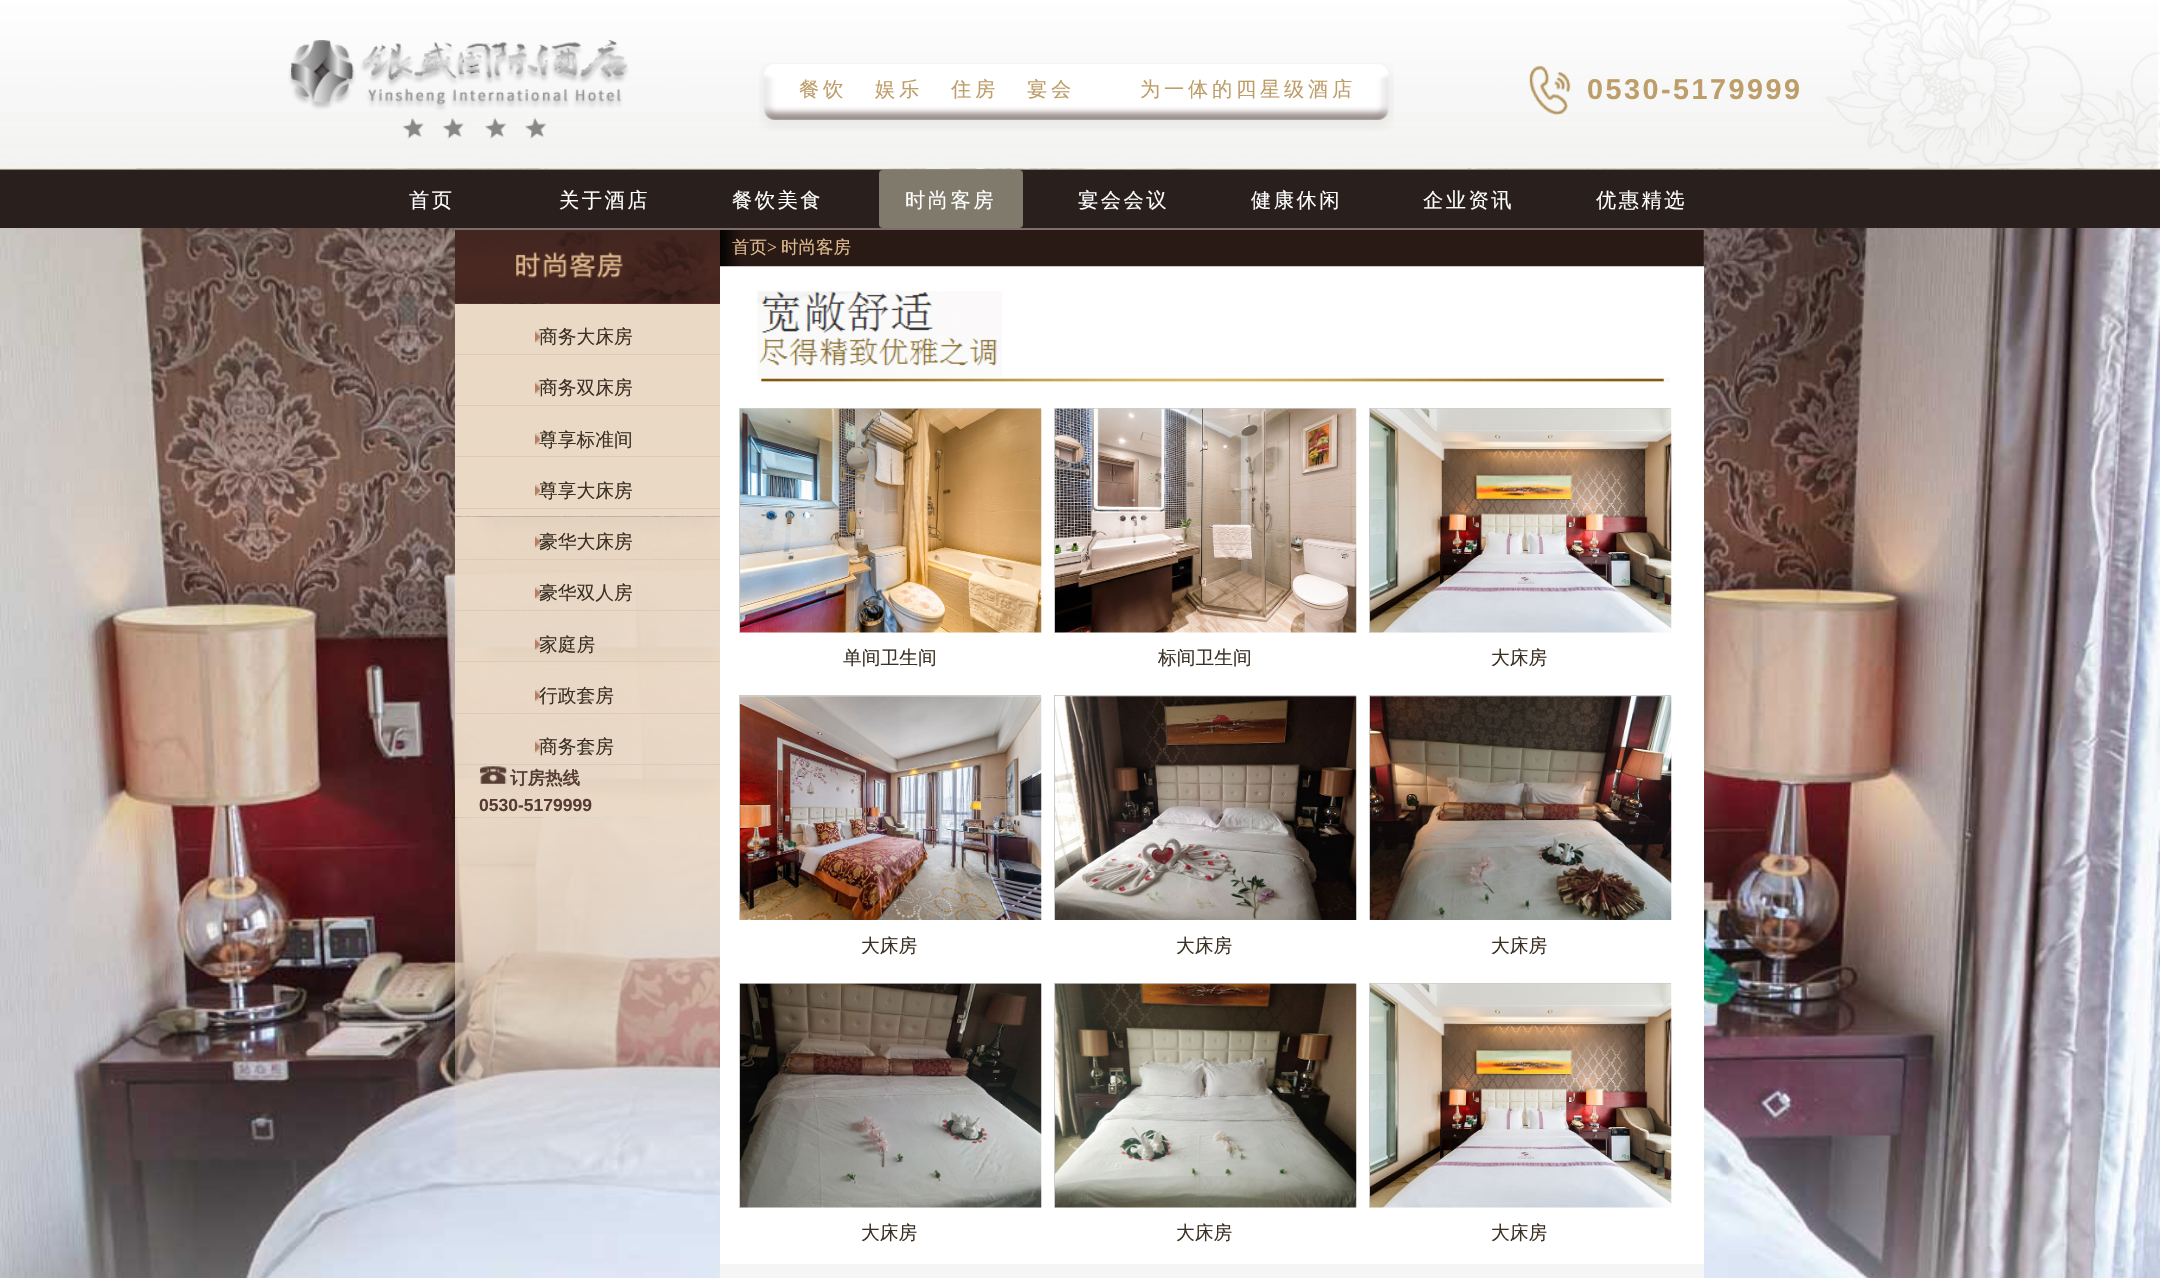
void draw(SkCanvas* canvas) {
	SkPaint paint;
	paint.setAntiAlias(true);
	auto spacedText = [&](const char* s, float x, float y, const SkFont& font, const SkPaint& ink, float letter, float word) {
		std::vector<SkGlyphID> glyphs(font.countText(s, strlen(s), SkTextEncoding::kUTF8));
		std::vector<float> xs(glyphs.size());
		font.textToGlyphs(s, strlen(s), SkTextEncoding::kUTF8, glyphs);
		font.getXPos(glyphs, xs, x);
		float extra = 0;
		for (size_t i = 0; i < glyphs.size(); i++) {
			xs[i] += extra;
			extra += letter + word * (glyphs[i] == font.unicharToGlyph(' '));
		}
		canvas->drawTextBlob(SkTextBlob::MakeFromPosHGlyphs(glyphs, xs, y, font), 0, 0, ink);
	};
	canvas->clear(0xffffffff);
	canvas->drawImageRect(SkImages::DeferredFromEncodedData(SkData::MakeFromFileName("img1.png")), SkRect::MakeXYWH(0, 168, 2160, 1110), SkSamplingOptions());
	canvas->drawImageRect(SkImages::DeferredFromEncodedData(SkData::MakeFromFileName("img2.png")), SkRect::MakeXYWH(0, 0, 2160, 169), SkSamplingOptions());
	canvas->drawImageRect(SkImages::DeferredFromEncodedData(SkData::MakeFromFileName("img3.png")), SkRect::MakeXYWH(288, 40, 341, 99), SkSamplingOptions());
	canvas->drawImageRect(SkImages::DeferredFromEncodedData(SkData::MakeFromFileName("img4.png")), SkRect::MakeXYWH(759, 63, 635, 68), SkSamplingOptions());
	SkFont f1(fontMgr->matchFamilyStyle("WenQuanYi Zen Hei", SkFontStyle(500, SkFontStyle::kNormal_Width, SkFontStyle::kUpright_Slant)), 20.25);
	f1.setSubpixel(true);
	paint.setColor(0xffbd9d68);
	spacedText("餐饮", 799, 96, f1, paint, 3.75, 0);
	spacedText("娱乐", 875, 96, f1, paint, 3.75, 0);
	spacedText("住房", 951, 96, f1, paint, 3.75, 0);
	spacedText("宴会", 1027, 96, f1, paint, 3.75, 0);
	spacedText("为一体的四星级酒店", 1140, 96, f1, paint, 3.75, 0);
	canvas->drawImageRect(SkImages::DeferredFromEncodedData(SkData::MakeFromFileName("img5.png")), SkRect::MakeXYWH(1529, 65, 42, 50), SkSamplingOptions());
	SkFont f2(fontMgr->matchFamilyStyle("Liberation Sans", SkFontStyle::Bold()), 28.75);
	f2.setSubpixel(true);
	spacedText("0530-5179999", 1587, 99, f2, paint, 2.5, 0);
	paint.setColor(0xff291f1d);
	canvas->drawRect(SkRect::MakeXYWH(0, 170, 2160, 58), paint);
	paint.setColor(0xff9d8971);
	canvas->drawRect(SkRect::MakeXYWH(0, 169, 2160, 1), paint);
	paint.setColor(0xffffffff);
	spacedText("首页", 409, 207, f1, paint, 2.5, 0);
	spacedText("关于酒店", 559, 207, f1, paint, 2.5, 0);
	spacedText("餐饮美食", 732, 207, f1, paint, 2.5, 0);
	paint.setColor(0xff7f7a6b);
	canvas->drawRoundRect(SkRect::MakeXYWH(879, 170, 144, 58), 4, 4, paint);
	paint.setColor(0xffffffff);
	spacedText("时尚客房", 905, 207, f1, paint, 2.5, 0);
	spacedText("宴会会议", 1078, 207, f1, paint, 2.5, 0);
	spacedText("健康休闲", 1251, 207, f1, paint, 2.5, 0);
	spacedText("企业资讯", 1423, 207, f1, paint, 2.5, 0);
	spacedText("优惠精选", 1596, 207, f1, paint, 2.5, 0);
	paint.setColor(0xff7d6d6d);
	canvas->drawRect(SkRect::MakeXYWH(455, 228, 1251, 3), paint);
	canvas->drawImageRect(SkImages::DeferredFromEncodedData(SkData::MakeFromFileName("img6.png")), SkRect::MakeXYWH(455, 230, 265, 74), SkSamplingOptions());
	paint.setColor(0xffead9c5);
	canvas->drawRect(SkRect::MakeXYWH(455, 304, 265, 212), paint);
	paint.setColor(0xffddcbb7);
	canvas->drawRect(SkRect::MakeXYWH(455, 354, 265, 1), paint);
	canvas->drawImageRect(SkImages::DeferredFromEncodedData(SkData::MakeFromFileName("img7.png")), SkRect::MakeXYWH(535, 330, 5, 13), SkSamplingOptions());
	SkFont f3(fontMgr->matchFamilyStyle("WenQuanYi Zen Hei", SkFontStyle(500, SkFontStyle::kNormal_Width, SkFontStyle::kUpright_Slant)), 18.75);
	f3.setSubpixel(true);
	paint.setColor(0xff3c3024);
	canvas->drawString("商务大床房", 539, 343, f3, paint);
	paint.setColor(0xffddcbb7);
	canvas->drawRect(SkRect::MakeXYWH(455, 405, 265, 1), paint);
	canvas->drawImageRect(SkImages::DeferredFromEncodedData(SkData::MakeFromFileName("img8.png")), SkRect::MakeXYWH(535, 381, 5, 13), SkSamplingOptions());
	paint.setColor(0xff3c3024);
	canvas->drawString("商务双床房", 539, 394, f3, paint);
	paint.setColor(0xffddcbb7);
	canvas->drawRect(SkRect::MakeXYWH(455, 456, 265, 1), paint);
	canvas->drawImageRect(SkImages::DeferredFromEncodedData(SkData::MakeFromFileName("img9.png")), SkRect::MakeXYWH(535, 432, 5, 13), SkSamplingOptions());
	paint.setColor(0xff3c3024);
	canvas->drawString("尊享标准间", 539, 446, f3, paint);
	paint.setColor(0xffddcbb7);
	canvas->drawRect(SkRect::MakeXYWH(455, 508, 265, 1), paint);
	canvas->drawImageRect(SkImages::DeferredFromEncodedData(SkData::MakeFromFileName("img10.png")), SkRect::MakeXYWH(535, 484, 5, 13), SkSamplingOptions());
	paint.setColor(0xff3c3024);
	canvas->drawString("尊享大床房", 539, 497, f3, paint);
	canvas->drawImageRect(SkImages::DeferredFromEncodedData(SkData::MakeFromFileName("img16.png")), SkRect::MakeXYWH(455, 516, 265, 302), SkSamplingOptions());
	paint.setColor(0xffddcbb7);
	canvas->drawRect(SkRect::MakeXYWH(455, 559, 265, 1), paint);
	canvas->drawImageRect(SkImages::DeferredFromEncodedData(SkData::MakeFromFileName("img11.png")), SkRect::MakeXYWH(535, 535, 5, 13), SkSamplingOptions());
	paint.setColor(0xff3c3024);
	canvas->drawString("豪华大床房", 539, 548, f3, paint);
	paint.setColor(0xffddcbb7);
	canvas->drawRect(SkRect::MakeXYWH(455, 610, 265, 1), paint);
	canvas->drawImageRect(SkImages::DeferredFromEncodedData(SkData::MakeFromFileName("img12.png")), SkRect::MakeXYWH(535, 586, 5, 13), SkSamplingOptions());
	paint.setColor(0xff3c3024);
	canvas->drawString("豪华双人房", 539, 599, f3, paint);
	paint.setColor(0xffddcbb7);
	canvas->drawRect(SkRect::MakeXYWH(455, 661, 265, 1), paint);
	canvas->drawImageRect(SkImages::DeferredFromEncodedData(SkData::MakeFromFileName("img13.png")), SkRect::MakeXYWH(535, 637, 5, 13), SkSamplingOptions());
	paint.setColor(0xff3c3024);
	canvas->drawString("家庭房", 539, 651, f3, paint);
	paint.setColor(0xffddcbb7);
	canvas->drawRect(SkRect::MakeXYWH(455, 713, 265, 1), paint);
	canvas->drawImageRect(SkImages::DeferredFromEncodedData(SkData::MakeFromFileName("img14.png")), SkRect::MakeXYWH(535, 689, 5, 13), SkSamplingOptions());
	paint.setColor(0xff3c3024);
	canvas->drawString("行政套房", 539, 702, f3, paint);
	paint.setColor(0xffddcbb7);
	canvas->drawRect(SkRect::MakeXYWH(455, 764, 265, 1), paint);
	canvas->drawImageRect(SkImages::DeferredFromEncodedData(SkData::MakeFromFileName("img15.png")), SkRect::MakeXYWH(535, 740, 5, 13), SkSamplingOptions());
	paint.setColor(0xff3c3024);
	canvas->drawString("商务套房", 539, 753, f3, paint);
	canvas->drawImageRect(SkImages::DeferredFromEncodedData(SkData::MakeFromFileName("img17.png")), SkRect::MakeXYWH(480, 766, 27, 18), SkSamplingOptions());
	SkFont f4(fontMgr->matchFamilyStyle("WenQuanYi Zen Hei", SkFontStyle::Bold()), 17.5);
	f4.setSubpixel(true);
	paint.setColor(0xff563c34);
	canvas->drawString("订房热线", 510, 784, f4, paint);
	SkFont f5(fontMgr->matchFamilyStyle("Liberation Sans", SkFontStyle::Bold()), 17.5);
	f5.setSubpixel(true);
	canvas->drawString("0530-5179999", 479, 811, f5, paint);
	canvas->drawImageRect(SkImages::DeferredFromEncodedData(SkData::MakeFromFileName("img18.png")), SkRect::MakeXYWH(455, 817, 265, 372), SkSamplingOptions());
	paint.setColor(0xffffffff);
	canvas->drawRect(SkRect::MakeXYWH(720, 266, 984, 998), paint);
	canvas->drawImageRect(SkImages::DeferredFromEncodedData(SkData::MakeFromFileName("img19.png")), SkRect::MakeXYWH(720, 230, 984, 37), SkSamplingOptions());
	SkFont f6(fontMgr->matchFamilyStyle("WenQuanYi Zen Hei", SkFontStyle(500, SkFontStyle::kNormal_Width, SkFontStyle::kUpright_Slant)), 17.5);
	f6.setSubpixel(true);
	paint.setColor(0xffe1bb8e);
	canvas->drawString("首页", 732, 253, f6, paint);
	SkFont f7(fontMgr->matchFamilyStyle("Liberation Serif", SkFontStyle::Normal()), 17.5);
	f7.setSubpixel(true);
	canvas->drawString(">", 767, 253, f7, paint);
	canvas->drawString("时尚客房", 781, 253, f6, paint);
	canvas->drawImageRect(SkImages::DeferredFromEncodedData(SkData::MakeFromFileName("img20.png")), SkRect::MakeXYWH(757, 291, 245, 86), SkSamplingOptions());
	canvas->drawImageRect(SkImages::DeferredFromEncodedData(SkData::MakeFromFileName("img21.png")), SkRect::MakeXYWH(758, 377, 912, 6), SkSamplingOptions());
	canvas->save();
	canvas->clipRect(SkRect::MakeXYWH(739, 408, 302, 225));
	paint.setStroke(true);
	paint.setStrokeWidth(1);
	paint.setColor(0xffcccccc);
	canvas->drawRect(SkRect::MakeXYWH(739.5, 408.5, 304, 226), paint);
	canvas->restore();
	canvas->drawImageRect(SkImages::DeferredFromEncodedData(SkData::MakeFromFileName("img22.png")), SkRect::MakeXYWH(740, 408, 302, 225), SkSamplingOptions());
	paint.setStroke(false);
	paint.setColor(0xff3c3024);
	canvas->drawString("单间卫生间", 843, 664, f3, paint);
	canvas->save();
	canvas->clipRect(SkRect::MakeXYWH(1054, 408, 302, 225));
	paint.setStroke(true);
	paint.setColor(0xffcccccc);
	canvas->drawRect(SkRect::MakeXYWH(1054.5, 408.5, 304, 226), paint);
	canvas->restore();
	canvas->drawImageRect(SkImages::DeferredFromEncodedData(SkData::MakeFromFileName("img23.png")), SkRect::MakeXYWH(1055, 408, 302, 225), SkSamplingOptions());
	paint.setStroke(false);
	paint.setColor(0xff3c3024);
	canvas->drawString("标间卫生间", 1158, 664, f3, paint);
	canvas->save();
	canvas->clipRect(SkRect::MakeXYWH(1369, 408, 302, 225));
	paint.setStroke(true);
	paint.setColor(0xffcccccc);
	canvas->drawRect(SkRect::MakeXYWH(1369.5, 408.5, 304, 226), paint);
	canvas->restore();
	canvas->drawImageRect(SkImages::DeferredFromEncodedData(SkData::MakeFromFileName("img24.png")), SkRect::MakeXYWH(1370, 408, 302, 225), SkSamplingOptions());
	paint.setStroke(false);
	paint.setColor(0xff3c3024);
	canvas->drawString("大床房", 1491, 664, f3, paint);
	canvas->save();
	canvas->clipRect(SkRect::MakeXYWH(739, 695, 302, 225));
	paint.setStroke(true);
	paint.setColor(0xffcccccc);
	canvas->drawRect(SkRect::MakeXYWH(739.5, 695.5, 304, 227), paint);
	canvas->restore();
	canvas->drawImageRect(SkImages::DeferredFromEncodedData(SkData::MakeFromFileName("img25.png")), SkRect::MakeXYWH(740, 696, 302, 224), SkSamplingOptions());
	paint.setStroke(false);
	paint.setColor(0xff3c3024);
	canvas->drawString("大床房", 861, 952, f3, paint);
	canvas->save();
	canvas->clipRect(SkRect::MakeXYWH(1054, 695, 302, 225));
	paint.setStroke(true);
	paint.setColor(0xffcccccc);
	canvas->drawRect(SkRect::MakeXYWH(1054.5, 695.5, 304, 229), paint);
	canvas->restore();
	canvas->drawImageRect(SkImages::DeferredFromEncodedData(SkData::MakeFromFileName("img26.png")), SkRect::MakeXYWH(1055, 696, 302, 224), SkSamplingOptions());
	paint.setStroke(false);
	paint.setColor(0xff3c3024);
	canvas->drawString("大床房", 1176, 952, f3, paint);
	canvas->save();
	canvas->clipRect(SkRect::MakeXYWH(1369, 695, 302, 225));
	paint.setStroke(true);
	paint.setColor(0xffcccccc);
	canvas->drawRect(SkRect::MakeXYWH(1369.5, 695.5, 304, 229), paint);
	canvas->restore();
	canvas->drawImageRect(SkImages::DeferredFromEncodedData(SkData::MakeFromFileName("img27.png")), SkRect::MakeXYWH(1370, 696, 302, 224), SkSamplingOptions());
	paint.setStroke(false);
	paint.setColor(0xff3c3024);
	canvas->drawString("大床房", 1491, 952, f3, paint);
	canvas->save();
	canvas->clipRect(SkRect::MakeXYWH(739, 983, 302, 225));
	paint.setStroke(true);
	paint.setColor(0xffcccccc);
	canvas->drawRect(SkRect::MakeXYWH(739.5, 983.5, 304, 229), paint);
	canvas->restore();
	canvas->drawImageRect(SkImages::DeferredFromEncodedData(SkData::MakeFromFileName("img28.png")), SkRect::MakeXYWH(740, 983, 302, 225), SkSamplingOptions());
	paint.setStroke(false);
	paint.setColor(0xff3c3024);
	canvas->drawString("大床房", 861, 1239, f3, paint);
	canvas->save();
	canvas->clipRect(SkRect::MakeXYWH(1054, 983, 302, 225));
	paint.setStroke(true);
	paint.setColor(0xffcccccc);
	canvas->drawRect(SkRect::MakeXYWH(1054.5, 983.5, 304, 229), paint);
	canvas->restore();
	canvas->drawImageRect(SkImages::DeferredFromEncodedData(SkData::MakeFromFileName("img29.png")), SkRect::MakeXYWH(1055, 983, 302, 225), SkSamplingOptions());
	paint.setStroke(false);
	paint.setColor(0xff3c3024);
	canvas->drawString("大床房", 1176, 1239, f3, paint);
	canvas->save();
	canvas->clipRect(SkRect::MakeXYWH(1369, 983, 302, 225));
	paint.setStroke(true);
	paint.setColor(0xffcccccc);
	canvas->drawRect(SkRect::MakeXYWH(1369.5, 983.5, 304, 226), paint);
	canvas->restore();
	canvas->drawImageRect(SkImages::DeferredFromEncodedData(SkData::MakeFromFileName("img30.png")), SkRect::MakeXYWH(1370, 983, 302, 225), SkSamplingOptions());
	paint.setStroke(false);
	paint.setColor(0xff3c3024);
	canvas->drawString("大床房", 1491, 1239, f3, paint);
	paint.setColor(0xfff5f5f5);
	canvas->drawRect(SkRect::MakeXYWH(720, 1264, 984, 14), paint);
}
